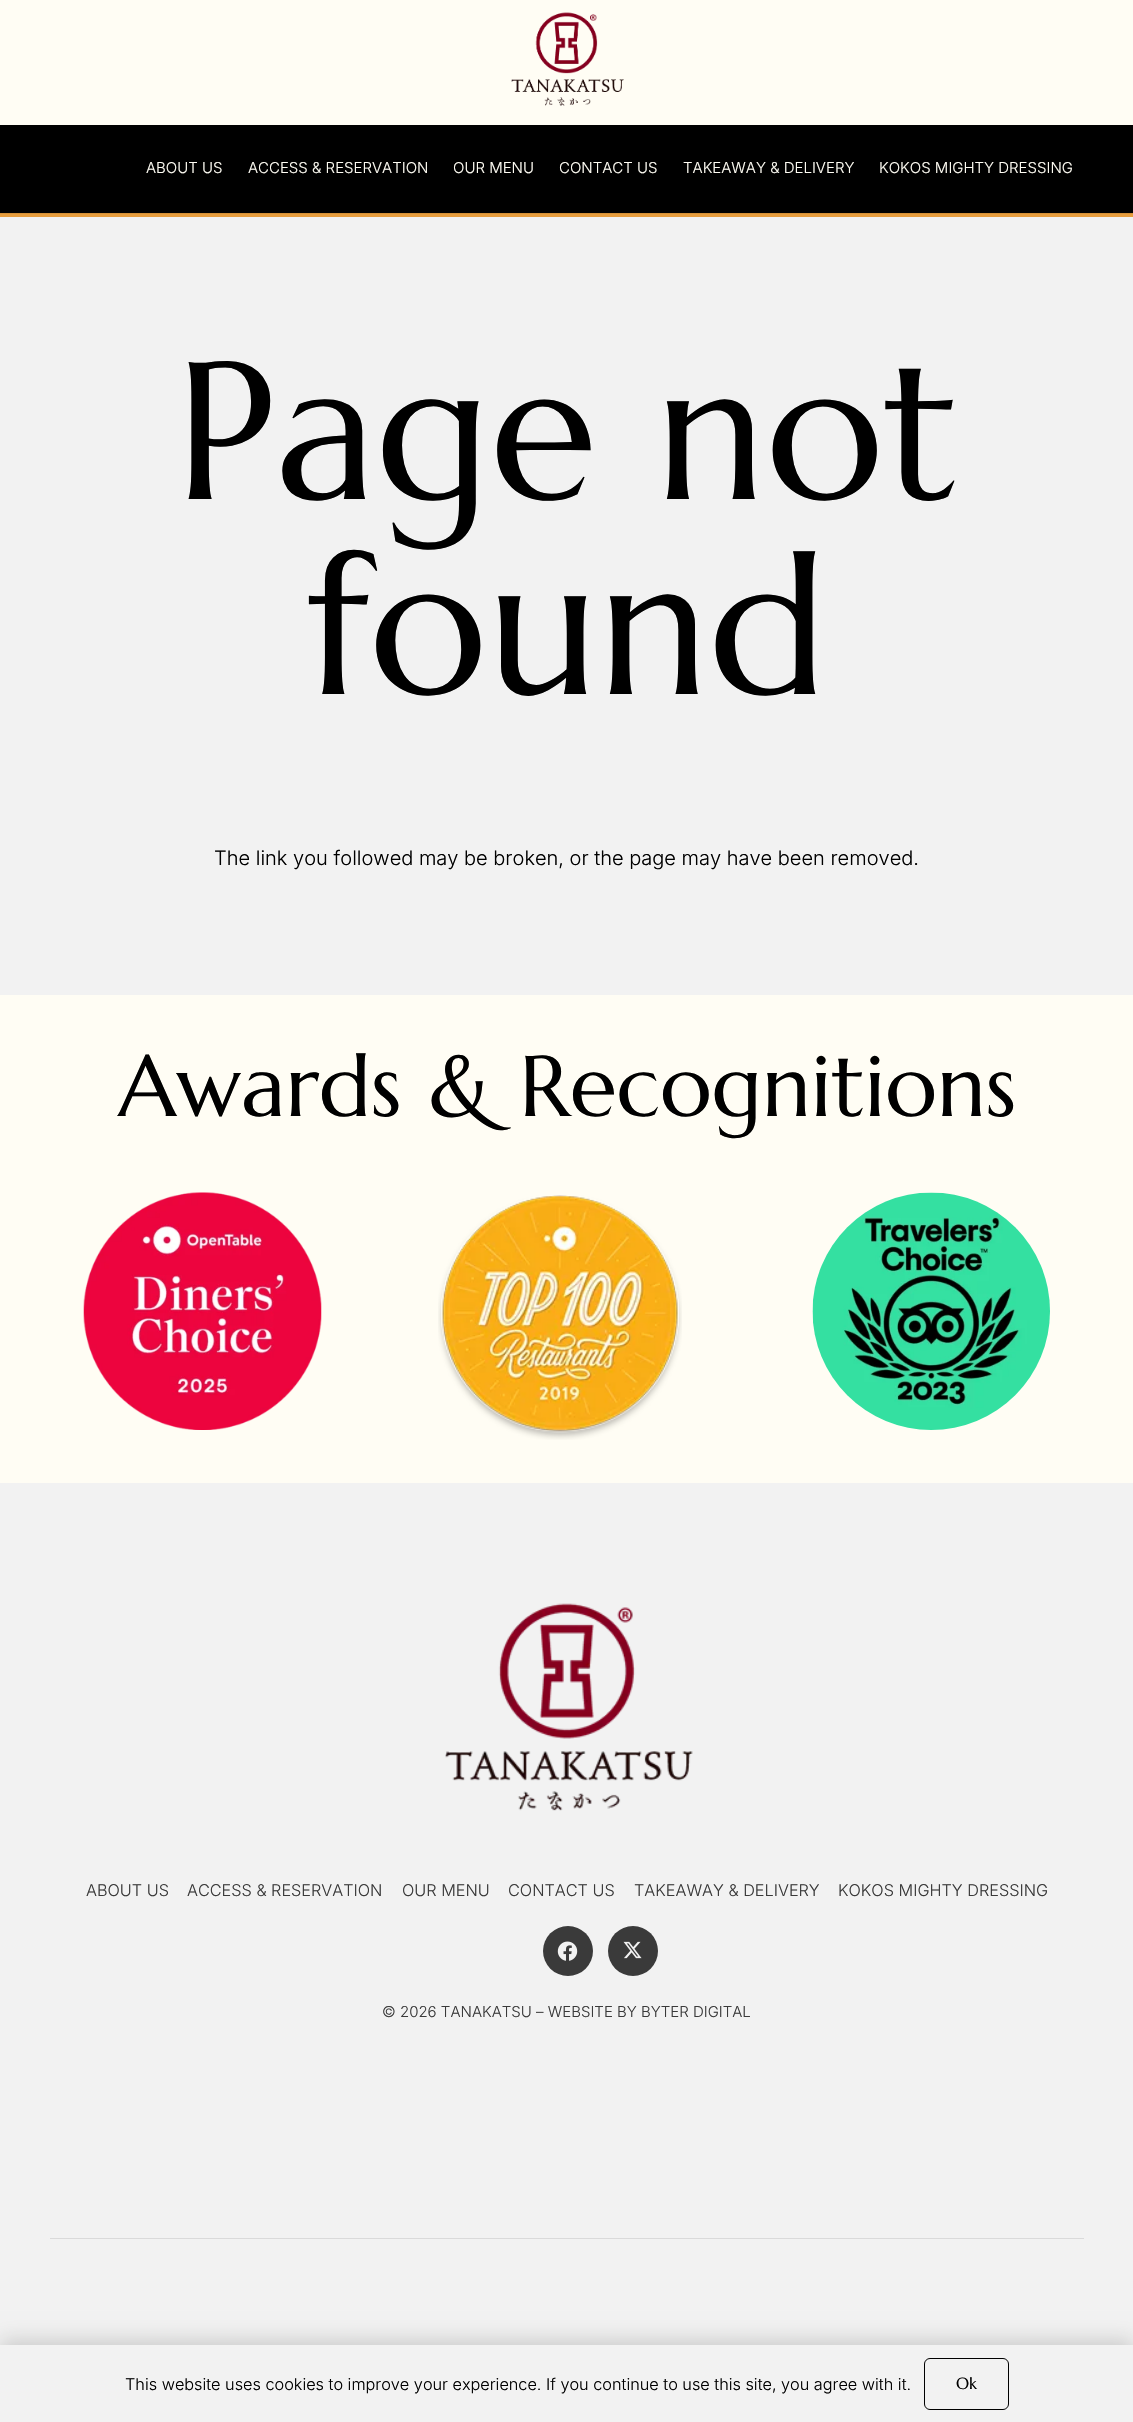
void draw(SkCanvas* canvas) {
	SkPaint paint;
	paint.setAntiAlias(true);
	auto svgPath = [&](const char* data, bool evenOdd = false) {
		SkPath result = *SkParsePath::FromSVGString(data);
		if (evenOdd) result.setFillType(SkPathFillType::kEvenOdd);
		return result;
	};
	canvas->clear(0xfff2f2f2);
	paint.setColor(0xffe79d3d);
	canvas->drawRect(SkRect::MakeXYWH(0, 213, 1133, 4), paint);
	paint.setColor(0xfffffdf4);
	canvas->drawRect(SkRect::MakeXYWH(0, 0, 1133, 125), paint);
	canvas->drawImageRect(SkImages::DeferredFromEncodedData(SkData::MakeFromFileName("img1.png")), SkRect::MakeXYWH(511, 12, 113, 94), SkSamplingOptions());
	paint.setColor(0x14000000);
	canvas->drawPath(svgPath("M0 212V214H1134V126V212Z"), paint);
	paint.setColor(0xff000000);
	canvas->drawRect(SkRect::MakeXYWH(0, 125, 1133, 88), paint);
	SkFont f1(fontMgr->matchFamilyStyle("Inter", SkFontStyle(300, SkFontStyle::kNormal_Width, SkFontStyle::kUpright_Slant)), 15);
	f1.setSubpixel(true);
	paint.setColor(0xfffffdf4);
	canvas->drawString("ABOUT US", 146, 173, f1, paint);
	canvas->drawString("ACCESS & RESERVATION", 248, 173, f1, paint);
	canvas->drawString("OUR MENU", 453, 173, f1, paint);
	canvas->drawString("CONTACT US", 559, 173, f1, paint);
	canvas->drawString("TAKEAWAY & DELIVERY", 683, 173, f1, paint);
	canvas->drawString("KOKOS MIGHTY DRESSING", 879, 173, f1, paint);
	SkFont f2(fontMgr->matchFamilyStyle("Marcellus", SkFontStyle::Normal()), 195.5);
	f2.setSubpixel(true);
	paint.setColor(0xff000000);
	canvas->drawString("Page not", 175, 499, f2, paint);
	canvas->drawString("found", 307, 694, f2, paint);
	SkFont f3(fontMgr->matchFamilyStyle("Inter", SkFontStyle(300, SkFontStyle::kNormal_Width, SkFontStyle::kUpright_Slant)), 20);
	f3.setSubpixel(true);
	canvas->drawString("The link you followed may be broken, or the page may have been removed.", 214, 865, f3, paint);
	paint.setColor(0xfffffdf4);
	canvas->drawRect(SkRect::MakeXYWH(0, 995, 1133, 488), paint);
	SkFont f4(fontMgr->matchFamilyStyle("Marcellus", SkFontStyle::Normal()), 86);
	f4.setSubpixel(true);
	paint.setColor(0xff000000);
	canvas->drawString("Awards & Recognitions", 118, 1116, f4, paint);
	canvas->drawImageRect(SkImages::DeferredFromEncodedData(SkData::MakeFromFileName("img2.png")), SkRect::MakeXYWH(83, 1192, 239, 238), SkSamplingOptions());
	canvas->drawImageRect(SkImages::DeferredFromEncodedData(SkData::MakeFromFileName("img3.png")), SkRect::MakeXYWH(438, 1195, 244, 245), SkSamplingOptions());
	canvas->drawImageRect(SkImages::DeferredFromEncodedData(SkData::MakeFromFileName("img4.png")), SkRect::MakeXYWH(812, 1192, 238, 238), SkSamplingOptions());
	canvas->drawImageRect(SkImages::DeferredFromEncodedData(SkData::MakeFromFileName("img5.png")), SkRect::MakeXYWH(445, 1603, 248, 208), SkSamplingOptions());
	SkFont f5(fontMgr->matchFamilyStyle("Inter", SkFontStyle(300, SkFontStyle::kNormal_Width, SkFontStyle::kUpright_Slant)), 16.25);
	f5.setSubpixel(true);
	paint.setColor(0xff3a3a3a);
	canvas->drawString("ABOUT US", 86, 1896, f5, paint);
	canvas->drawString("ACCESS & RESERVATION", 187, 1896, f5, paint);
	canvas->drawString("OUR MENU", 402, 1896, f5, paint);
	canvas->drawString("CONTACT US", 508, 1896, f5, paint);
	canvas->drawString("TAKEAWAY & DELIVERY", 634, 1896, f5, paint);
	canvas->drawString("KOKOS MIGHTY DRESSING", 838, 1896, f5, paint);
	canvas->drawCircle(568, 1951, 25, paint);
	canvas->drawImageRect(SkImages::DeferredFromEncodedData(SkData::MakeFromFileName("img6.png")), SkRect::MakeXYWH(557, 1941, 21, 20), SkSamplingOptions());
	canvas->drawCircle(633, 1951, 25, paint);
	canvas->drawImageRect(SkImages::DeferredFromEncodedData(SkData::MakeFromFileName("img7.png")), SkRect::MakeXYWH(623, 1941, 19, 18), SkSamplingOptions());
	canvas->drawString("© 2026 TANAKATSU – WEBSITE BY BYTER DIGITAL", 382, 2017, f1, paint);
	paint.setColor(0xffdadada);
	canvas->drawRect(SkRect::MakeXYWH(50, 2238, 1034, 1), paint);
	paint.setColor(0x26000000);
	paint.setMaskFilter(SkMaskFilter::MakeBlur(kNormal_SkBlurStyle, 9.5));
	canvas->drawRect(SkRect::MakeXYWH(0, 2339, 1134, 77), paint);
	paint.setMaskFilter(nullptr);
	paint.setColor(0xfff2f2f2);
	canvas->drawRect(SkRect::MakeXYWH(0, 2345, 1133, 77), paint);
	paint.setColor(0xff000000);
	canvas->drawString("This website uses cookies to improve your experience. If you continue to use this site, you agree with it.", 125, 2390, f5, paint);
	paint.setStroke(true);
	paint.setStrokeWidth(1);
	canvas->drawRoundRect(SkRect::MakeXYWH(924.5, 2358.5, 84, 51), 5.5, 5.5, paint);
	SkFont f6(fontMgr->matchFamilyStyle("Marcellus", SkFontStyle::Normal()), 16.25);
	f6.setSubpixel(true);
	paint.setStroke(false);
	canvas->drawString("Ok", 956, 2389, f6, paint);
}
